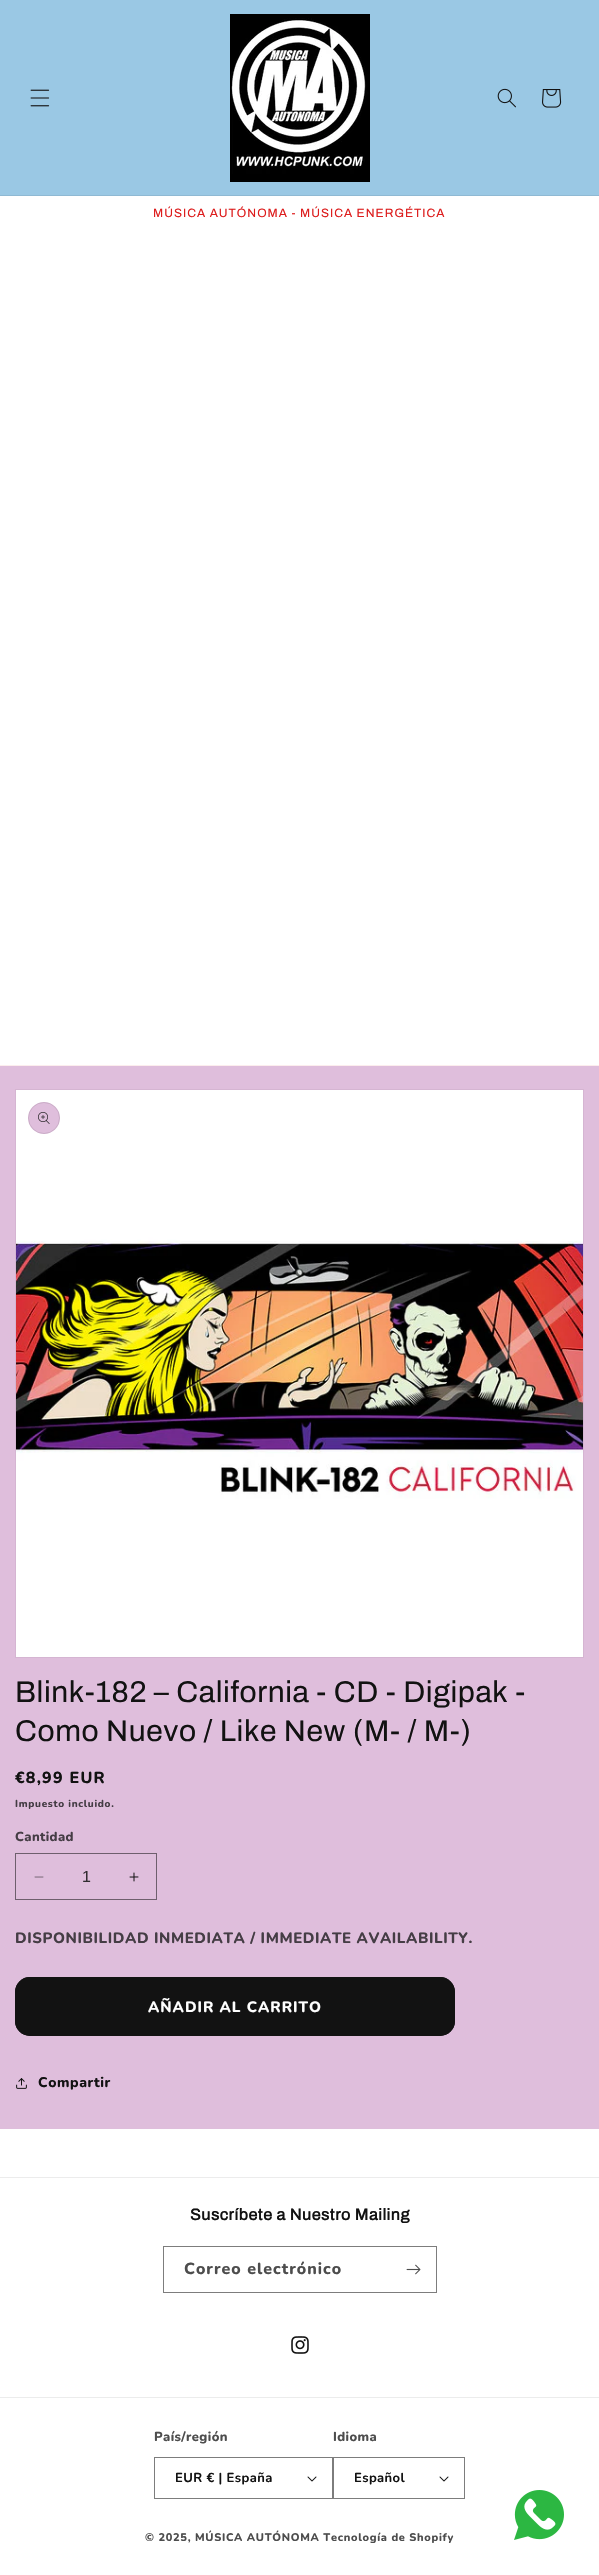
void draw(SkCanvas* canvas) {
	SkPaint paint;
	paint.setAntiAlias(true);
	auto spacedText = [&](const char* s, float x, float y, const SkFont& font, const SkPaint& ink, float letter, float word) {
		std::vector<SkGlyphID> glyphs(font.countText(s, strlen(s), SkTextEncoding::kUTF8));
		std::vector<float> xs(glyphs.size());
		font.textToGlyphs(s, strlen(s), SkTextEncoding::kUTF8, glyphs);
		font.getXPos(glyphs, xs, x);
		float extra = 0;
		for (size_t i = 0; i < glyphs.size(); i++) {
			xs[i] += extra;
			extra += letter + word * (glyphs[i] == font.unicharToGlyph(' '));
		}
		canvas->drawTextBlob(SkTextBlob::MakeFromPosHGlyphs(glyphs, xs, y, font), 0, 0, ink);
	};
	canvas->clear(0xffffffff);
	paint.setColor(0xff9ac8e4);
	canvas->drawRect(SkRect::MakeXYWH(0, 0, 599, 195), paint);
	paint.setColor(0xff8fb9d3);
	canvas->drawRect(SkRect::MakeXYWH(0, 195, 599, 1), paint);
	canvas->drawImageRect(SkImages::DeferredFromEncodedData(SkData::MakeFromFileName("img1.png")), SkRect::MakeXYWH(30, 89, 20, 18), SkSamplingOptions());
	canvas->drawImageRect(SkImages::DeferredFromEncodedData(SkData::MakeFromFileName("img2.png")), SkRect::MakeXYWH(230, 14, 140, 168), SkSamplingOptions());
	canvas->drawImageRect(SkImages::DeferredFromEncodedData(SkData::MakeFromFileName("img3.png")), SkRect::MakeXYWH(497, 88, 19, 20), SkSamplingOptions());
	canvas->drawImageRect(SkImages::DeferredFromEncodedData(SkData::MakeFromFileName("img4.png")), SkRect::MakeXYWH(542, 89, 20, 19), SkSamplingOptions());
	paint.setColor(0xfffceded);
	canvas->drawRect(SkRect::MakeXYWH(0, 1065, 599, 1), paint);
	SkFont f1(fontMgr->matchFamilyStyle("Archivo", SkFontStyle::Normal()), 12);
	f1.setSubpixel(true);
	paint.setColor(0xffdd1d1d);
	spacedText("MÚSICA AUTÓNOMA - MÚSICA ENERGÉTICA", 153, 217, f1, paint, 1, 0);
	paint.setColor(0xffdfbedc);
	canvas->drawRect(SkRect::MakeXYWH(0, 1066, 599, 1063), paint);
	paint.setStroke(true);
	paint.setStrokeWidth(1);
	paint.setColor(0xffd5b5d2);
	canvas->drawRect(SkRect::MakeXYWH(15.5, 1089.5, 568, 568), paint);
	canvas->drawImageRect(SkImages::DeferredFromEncodedData(SkData::MakeFromFileName("img5.png")), SkRect::MakeXYWH(16, 1090, 567, 567), SkSamplingOptions());
	paint.setStroke(false);
	paint.setColor(0xffdfbedc);
	canvas->drawCircle(44, 1118, 16, paint);
	paint.setStroke(true);
	paint.setColor(0x1a121212);
	canvas->drawCircle(44, 1118, 15.5, paint);
	canvas->drawImageRect(SkImages::DeferredFromEncodedData(SkData::MakeFromFileName("img6.png")), SkRect::MakeXYWH(38, 1112, 12, 12), SkSamplingOptions());
	SkFont f2(fontMgr->matchFamilyStyle("Archivo", SkFontStyle::Normal()), 30);
	f2.setSubpixel(true);
	paint.setStroke(false);
	paint.setColor(0xff121212);
	spacedText("Blink-182 – California - CD - Digipak -", 15, 1702, f2, paint, 0.6, 0);
	spacedText("Como Nuevo / Like New (M- / M-)", 15, 1741, f2, paint, 0.6, 0);
	SkFont f3(fontMgr->matchFamilyStyle("Nunito", SkFontStyle(800, SkFontStyle::kNormal_Width, SkFontStyle::kUpright_Slant)), 16);
	f3.setSubpixel(true);
	spacedText("€8,99 EUR", 15, 1783, f3, paint, 1.25, 0);
	SkFont f4(fontMgr->matchFamilyStyle("Nunito", SkFontStyle(800, SkFontStyle::kNormal_Width, SkFontStyle::kUpright_Slant)), 10);
	f4.setSubpixel(true);
	paint.setColor(0xff453d45);
	spacedText("Impuesto incluido.", 15, 1807, f4, paint, 0.7, 0);
	SkFont f5(fontMgr->matchFamilyStyle("Nunito", SkFontStyle(800, SkFontStyle::kNormal_Width, SkFontStyle::kUpright_Slant)), 13);
	f5.setSubpixel(true);
	spacedText("Cantidad", 15, 1841, f5, paint, 0.4, 0);
	canvas->drawImageRect(SkImages::DeferredFromEncodedData(SkData::MakeFromFileName("img7.png")), SkRect::MakeXYWH(34, 1876, 10, 2), SkSamplingOptions());
	canvas->drawImageRect(SkImages::DeferredFromEncodedData(SkData::MakeFromFileName("img8.png")), SkRect::MakeXYWH(129, 1872, 10, 10), SkSamplingOptions());
	paint.setStroke(true);
	paint.setColor(0xff6e5f6d);
	canvas->drawRect(SkRect::MakeXYWH(15.5, 1853.5, 141, 46), paint);
	SkFont f6(fontMgr->matchFamilyStyle("Liberation Sans", SkFontStyle::Normal()), 16);
	f6.setSubpixel(true);
	paint.setStroke(false);
	paint.setColor(0xff312c30);
	canvas->drawString("1", 82, 1882, f6, paint);
	SkFont f7(fontMgr->matchFamilyStyle("Nunito", SkFontStyle(800, SkFontStyle::kNormal_Width, SkFontStyle::kUpright_Slant)), 15);
	f7.setSubpixel(true);
	paint.setColor(0xff453d45);
	spacedText("DISPONIBILIDAD INMEDIATA / IMMEDIATE AVAILABILITY.", 15, 1943, f7, paint, 0.6, 0);
	paint.setColor(0xff121212);
	canvas->drawRoundRect(SkRect::MakeXYWH(15, 1977, 440, 59), 15, 15, paint);
	paint.setStroke(true);
	paint.setStrokeWidth(7);
	canvas->drawRoundRect(SkRect::MakeXYWH(18.5, 1980.5, 433, 52), 11.5, 11.5, paint);
	paint.setStroke(false);
	paint.setColor(0xffffffff);
	spacedText("AÑADIR AL CARRITO", 148, 2012, f7, paint, 1, 0);
	canvas->drawImageRect(SkImages::DeferredFromEncodedData(SkData::MakeFromFileName("img9.png")), SkRect::MakeXYWH(16, 2078, 11, 11), SkSamplingOptions());
	SkFont f8(fontMgr->matchFamilyStyle("Nunito", SkFontStyle(800, SkFontStyle::kNormal_Width, SkFontStyle::kUpright_Slant)), 14);
	f8.setSubpixel(true);
	paint.setColor(0xff121212);
	spacedText("Compartir", 38, 2087, f8, paint, 0.6, 0);
	paint.setColor(0xffececec);
	canvas->drawRect(SkRect::MakeXYWH(0, 2177, 599, 1), paint);
	SkFont f9(fontMgr->matchFamilyStyle("Archivo", SkFontStyle::Bold()), 16);
	f9.setSubpixel(true);
	paint.setColor(0xff121212);
	spacedText("Suscríbete a Nuestro Mailing", 190, 2220, f9, paint, 0.6, 0);
	paint.setStroke(true);
	paint.setStrokeWidth(1);
	paint.setColor(0xff7d7d7d);
	canvas->drawRect(SkRect::MakeXYWH(163.5, 2246.5, 273, 46), paint);
	paint.setStroke(false);
	paint.setColor(0xff4d4d4d);
	spacedText("Correo electrónico", 184, 2274, f3, paint, 1, 0);
	canvas->drawImageRect(SkImages::DeferredFromEncodedData(SkData::MakeFromFileName("img10.png")), SkRect::MakeXYWH(406, 2264, 15, 11), SkSamplingOptions());
	canvas->drawImageRect(SkImages::DeferredFromEncodedData(SkData::MakeFromFileName("img11.png")), SkRect::MakeXYWH(291, 2336, 18, 18), SkSamplingOptions());
	paint.setColor(0xffececec);
	canvas->drawRect(SkRect::MakeXYWH(0, 2397, 599, 1), paint);
	paint.setColor(0xff4d4d4d);
	spacedText("País/región", 154, 2441, f5, paint, 0.4, 0);
	canvas->drawImageRect(SkImages::DeferredFromEncodedData(SkData::MakeFromFileName("img12.png")), SkRect::MakeXYWH(307, 2476, 10, 6), SkSamplingOptions());
	paint.setStroke(true);
	paint.setColor(0xff7d7d7d);
	canvas->drawRect(SkRect::MakeXYWH(154.5, 2457.5, 178, 41), paint);
	SkFont f10(fontMgr->matchFamilyStyle("Nunito", SkFontStyle::Bold()), 13);
	f10.setSubpixel(true);
	paint.setStroke(false);
	paint.setColor(0xff121212);
	spacedText("EUR € | España", 175, 2482, f10, paint, 0.4, 0);
	paint.setColor(0xff4d4d4d);
	spacedText("Idioma", 333, 2441, f5, paint, 0.4, 0);
	canvas->drawImageRect(SkImages::DeferredFromEncodedData(SkData::MakeFromFileName("img12.png")), SkRect::MakeXYWH(439, 2476, 10, 6), SkSamplingOptions());
	paint.setStroke(true);
	paint.setColor(0xff7d7d7d);
	canvas->drawRect(SkRect::MakeXYWH(333.5, 2457.5, 131, 41), paint);
	paint.setStroke(false);
	paint.setColor(0xff121212);
	spacedText("Español", 354, 2482, f10, paint, 0.4, 0);
	SkFont f11(fontMgr->matchFamilyStyle("Nunito", SkFontStyle(800, SkFontStyle::kNormal_Width, SkFontStyle::kUpright_Slant)), 11);
	f11.setSubpixel(true);
	paint.setColor(0xff4d4d4d);
	spacedText("© 2025, MÚSICA AUTÓNOMA Tecnología de Shopify", 145, 2541, f11, paint, 0.7, 0);
	canvas->drawImageRect(SkImages::DeferredFromEncodedData(SkData::MakeFromFileName("img13.png")), SkRect::MakeXYWH(514, 2490, 50, 50), SkSamplingOptions());
}
